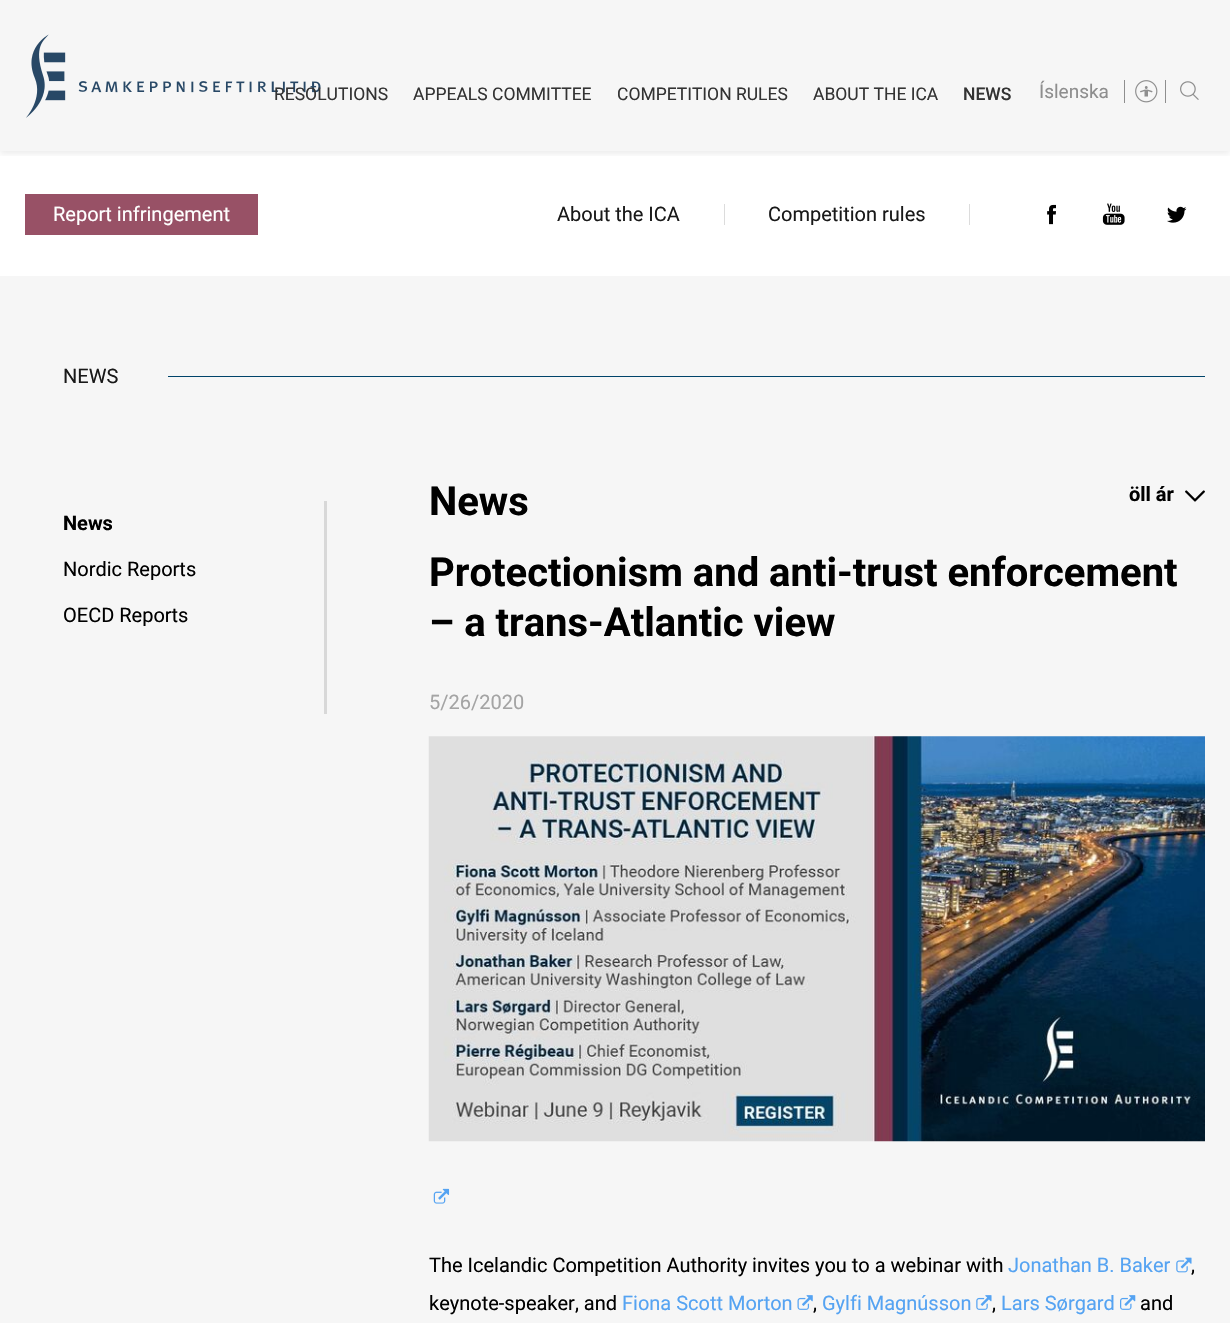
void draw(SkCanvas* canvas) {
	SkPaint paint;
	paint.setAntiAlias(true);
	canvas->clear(0xfff6f6f6);
	paint.setColor(0xffffffff);
	canvas->drawRect(SkRect::MakeXYWH(0, 151, 1230, 125), paint);
	canvas->save();
	canvas->clipRect(SkRect::MakeXYWH(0, 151, 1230, 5));
	paint.setColor(0x12000000);
	paint.setMaskFilter(SkMaskFilter::MakeBlur(kNormal_SkBlurStyle, 3));
	canvas->drawRect(SkRect::MakeXYWH(0, 3, 1230, 151), paint);
	paint.setMaskFilter(nullptr);
	canvas->restore();
	canvas->drawImageRect(SkImages::DeferredFromEncodedData(SkData::MakeFromFileName("img1.png")), SkRect::MakeXYWH(26, 34, 295, 84), SkSamplingOptions());
	SkFont f1(fontMgr->matchFamilyStyle("Roboto", SkFontStyle::Normal()), 17.5);
	f1.setSubpixel(true);
	paint.setColor(0xff333333);
	canvas->drawString("RESOLUTIONS", 274, 100, f1, paint);
	canvas->drawString("APPEALS COMMITTEE", 413, 100, f1, paint);
	canvas->drawString("COMPETITION RULES", 617, 100, f1, paint);
	canvas->drawString("ABOUT THE ICA", 813, 100, f1, paint);
	SkFont f2(fontMgr->matchFamilyStyle("Roboto", SkFontStyle(500, SkFontStyle::kNormal_Width, SkFontStyle::kUpright_Slant)), 17.5);
	f2.setSubpixel(true);
	canvas->drawString("NEWS", 963, 100, f2, paint);
	SkFont f3(fontMgr->matchFamilyStyle("Roboto", SkFontStyle::Normal()), 19);
	f3.setSubpixel(true);
	paint.setColor(0xff8e8e8e);
	canvas->drawString("Íslenska", 1039, 98, f3, paint);
	canvas->drawRect(SkRect::MakeXYWH(1165, 80, 1, 23), paint);
	canvas->drawImageRect(SkImages::DeferredFromEncodedData(SkData::MakeFromFileName("img2.png")), SkRect::MakeXYWH(1180, 81, 19, 19), SkSamplingOptions());
	canvas->drawRect(SkRect::MakeXYWH(1124, 80, 1, 23), paint);
	canvas->drawImageRect(SkImages::DeferredFromEncodedData(SkData::MakeFromFileName("img3.png")), SkRect::MakeXYWH(1135, 80, 23, 23), SkSamplingOptions());
	paint.setColor(0xff985166);
	canvas->drawRect(SkRect::MakeXYWH(25, 194, 233, 41), paint);
	SkFont f4(fontMgr->matchFamilyStyle("Roboto", SkFontStyle::Normal()), 20);
	f4.setSubpixel(true);
	paint.setColor(0xffffffff);
	canvas->drawString("Report infringement", 53, 221, f4, paint);
	paint.setColor(0xff191919);
	canvas->drawString("About the ICA", 557, 221, f4, paint);
	paint.setColor(0xffdcdcdc);
	canvas->drawRect(SkRect::MakeXYWH(724, 204, 1, 21), paint);
	paint.setColor(0xff191919);
	canvas->drawString("Competition rules", 768, 221, f4, paint);
	paint.setColor(0xffdcdcdc);
	canvas->drawRect(SkRect::MakeXYWH(969, 204, 1, 21), paint);
	canvas->drawImageRect(SkImages::DeferredFromEncodedData(SkData::MakeFromFileName("img4.png")), SkRect::MakeXYWH(1047, 204, 9, 21), SkSamplingOptions());
	canvas->drawImageRect(SkImages::DeferredFromEncodedData(SkData::MakeFromFileName("img5.png")), SkRect::MakeXYWH(1102, 203, 23, 22), SkSamplingOptions());
	canvas->drawImageRect(SkImages::DeferredFromEncodedData(SkData::MakeFromFileName("img6.png")), SkRect::MakeXYWH(1167, 206, 20, 17), SkSamplingOptions());
	paint.setColor(0xffd8d8d8);
	canvas->drawRect(SkRect::MakeXYWH(324, 501, 3, 213), paint);
	paint.setColor(0xff191919);
	canvas->drawString("NEWS", 63, 383, f4, paint);
	paint.setColor(0xff00446a);
	canvas->drawRect(SkRect::MakeXYWH(168, 376, 1037, 1), paint);
	SkFont f5(fontMgr->matchFamilyStyle("Roboto", SkFontStyle::Bold()), 20);
	f5.setSubpixel(true);
	paint.setColor(0xff000000);
	canvas->drawString("News", 63, 530, f5, paint);
	canvas->drawString("Nordic Reports", 63, 576, f4, paint);
	canvas->drawString("OECD Reports", 63, 622, f4, paint);
	SkFont f6(fontMgr->matchFamilyStyle("Roboto", SkFontStyle::Bold()), 40);
	f6.setSubpixel(true);
	canvas->drawString("News", 429, 515, f6, paint);
	canvas->drawString("Protectionism and anti-trust enforcement", 429, 586, f6, paint);
	canvas->drawString("– a trans-Atlantic view", 429, 636, f6, paint);
	paint.setColor(0xffa4a4a4);
	canvas->drawString("5/26/2020", 429, 709, f4, paint);
	canvas->drawImageRect(SkImages::DeferredFromEncodedData(SkData::MakeFromFileName("img7.png")), SkRect::MakeXYWH(428, 736, 777, 406), SkSamplingOptions());
	canvas->drawImageRect(SkImages::DeferredFromEncodedData(SkData::MakeFromFileName("img8.png")), SkRect::MakeXYWH(433, 1188, 17, 16), SkSamplingOptions());
	paint.setColor(0xff000000);
	canvas->drawString("The Icelandic Competition Authority invites you to a webinar with", 429, 1272, f4, paint);
	paint.setColor(0xff55a3f2);
	canvas->drawString("Jonathan B. Baker", 1008, 1272, f4, paint);
	canvas->drawImageRect(SkImages::DeferredFromEncodedData(SkData::MakeFromFileName("img9.png")), SkRect::MakeXYWH(1176, 1257, 16, 16), SkSamplingOptions());
	paint.setColor(0xff000000);
	canvas->drawString(",", 1191, 1272, f4, paint);
	canvas->drawString("keynote-speaker, and", 429, 1310, f4, paint);
	paint.setColor(0xff55a3f2);
	canvas->drawString("Fiona Scott Morton", 622, 1310, f4, paint);
	canvas->drawImageRect(SkImages::DeferredFromEncodedData(SkData::MakeFromFileName("img10.png")), SkRect::MakeXYWH(797, 1295, 16, 15), SkSamplingOptions());
	paint.setColor(0xff000000);
	canvas->drawString(",", 813, 1310, f4, paint);
	paint.setColor(0xff55a3f2);
	canvas->drawString("Gylfi Magnússon", 822, 1310, f4, paint);
	canvas->drawImageRect(SkImages::DeferredFromEncodedData(SkData::MakeFromFileName("img11.png")), SkRect::MakeXYWH(976, 1295, 16, 15), SkSamplingOptions());
	paint.setColor(0xff000000);
	canvas->drawString(",", 992, 1310, f4, paint);
	paint.setColor(0xff55a3f2);
	canvas->drawString("Lars Sørgard", 1001, 1310, f4, paint);
	canvas->drawImageRect(SkImages::DeferredFromEncodedData(SkData::MakeFromFileName("img12.png")), SkRect::MakeXYWH(1120, 1295, 16, 15), SkSamplingOptions());
	paint.setColor(0xff000000);
	canvas->drawString("and", 1140, 1310, f4, paint);
	canvas->drawString("öll ár", 1129, 501, f5, paint);
	canvas->drawImageRect(SkImages::DeferredFromEncodedData(SkData::MakeFromFileName("img13.png")), SkRect::MakeXYWH(1185, 490, 20, 12), SkSamplingOptions());
}
